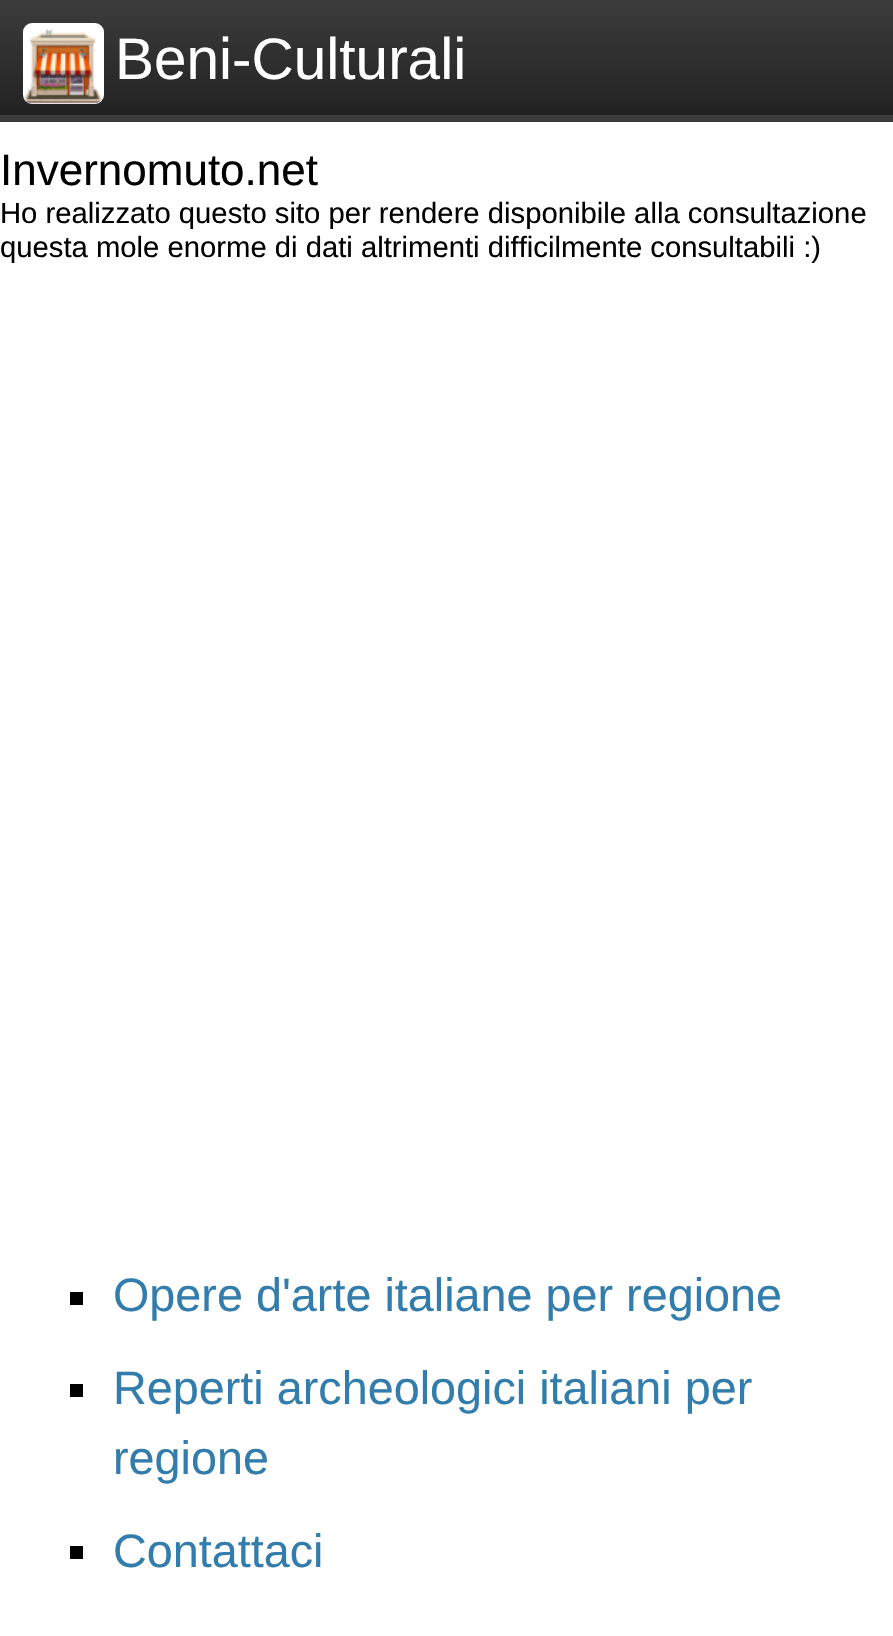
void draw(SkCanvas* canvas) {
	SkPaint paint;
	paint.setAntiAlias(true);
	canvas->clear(0xffffffff);
	{
		const SkColor colors[] = {0xff3c3c3c, 0xff222222};
		const float stops[] = {0, 1};
		const SkPoint ends[] = {{0, 0}, {0, 115}};
		paint.setShader(SkGradientShader::MakeLinear(ends, colors, stops, 2, SkTileMode::kClamp));
		paint.setAlpha(255);
	}
	canvas->drawRect(SkRect::MakeXYWH(0, 0, 893, 115), paint);
	{
		const SkColor colors[] = {0xff3c3c3c, 0xff222222};
		const float stops[] = {0, 1};
		const SkPoint ends[] = {{0, 115}, {0, 230}};
		paint.setShader(SkGradientShader::MakeLinear(ends, colors, stops, 2, SkTileMode::kClamp));
		paint.setAlpha(255);
	}
	canvas->drawRect(SkRect::MakeXYWH(0, 115, 893, 7), paint);
	paint.setShader(nullptr);
	paint.setColor(0xffffffff);
	canvas->drawRoundRect(SkRect::MakeXYWH(23, 23, 81, 81), 9, 9, paint);
	canvas->drawImageRect(SkImages::DeferredFromEncodedData(SkData::MakeFromFileName("img1.png")), SkRect::MakeXYWH(23, 28, 80, 76), SkSamplingOptions());
	SkFont f1(fontMgr->matchFamilyStyle("Liberation Sans", SkFontStyle::Normal()), 58.5);
	f1.setSubpixel(true);
	canvas->drawString("Beni-Culturali", 115, 79, f1, paint);
	SkFont f2(fontMgr->matchFamilyStyle("Liberation Sans", SkFontStyle::Normal()), 44);
	f2.setSubpixel(true);
	paint.setColor(0xff000000);
	canvas->drawString("Invernomuto.net", 0, 185, f2, paint);
	SkFont f3(fontMgr->matchFamilyStyle("Liberation Sans", SkFontStyle::Normal()), 29.25);
	f3.setSubpixel(true);
	canvas->drawString("Ho realizzato questo sito per rendere disponibile alla consultazione", 0, 223, f3, paint);
	canvas->drawString("questa mole enorme di dati altrimenti difficilmente consultabili :)", 0, 257, f3, paint);
	canvas->drawRect(SkRect::MakeXYWH(70, 1292, 13, 13), paint);
	SkFont f4(fontMgr->matchFamilyStyle("Liberation Sans", SkFontStyle::Normal()), 46.75);
	f4.setSubpixel(true);
	paint.setColor(0xff337dac);
	canvas->drawString("Opere d'arte italiane per regione", 113, 1311, f4, paint);
	paint.setColor(0xff000000);
	canvas->drawRect(SkRect::MakeXYWH(70, 1384, 13, 13), paint);
	paint.setColor(0xff337dac);
	canvas->drawString("Reperti archeologici italiani per", 113, 1404, f4, paint);
	canvas->drawString("regione", 113, 1474, f4, paint);
	paint.setColor(0xff000000);
	canvas->drawRect(SkRect::MakeXYWH(70, 1546, 13, 13), paint);
	paint.setColor(0xff337dac);
	canvas->drawString("Contattaci", 113, 1567, f4, paint);
}
